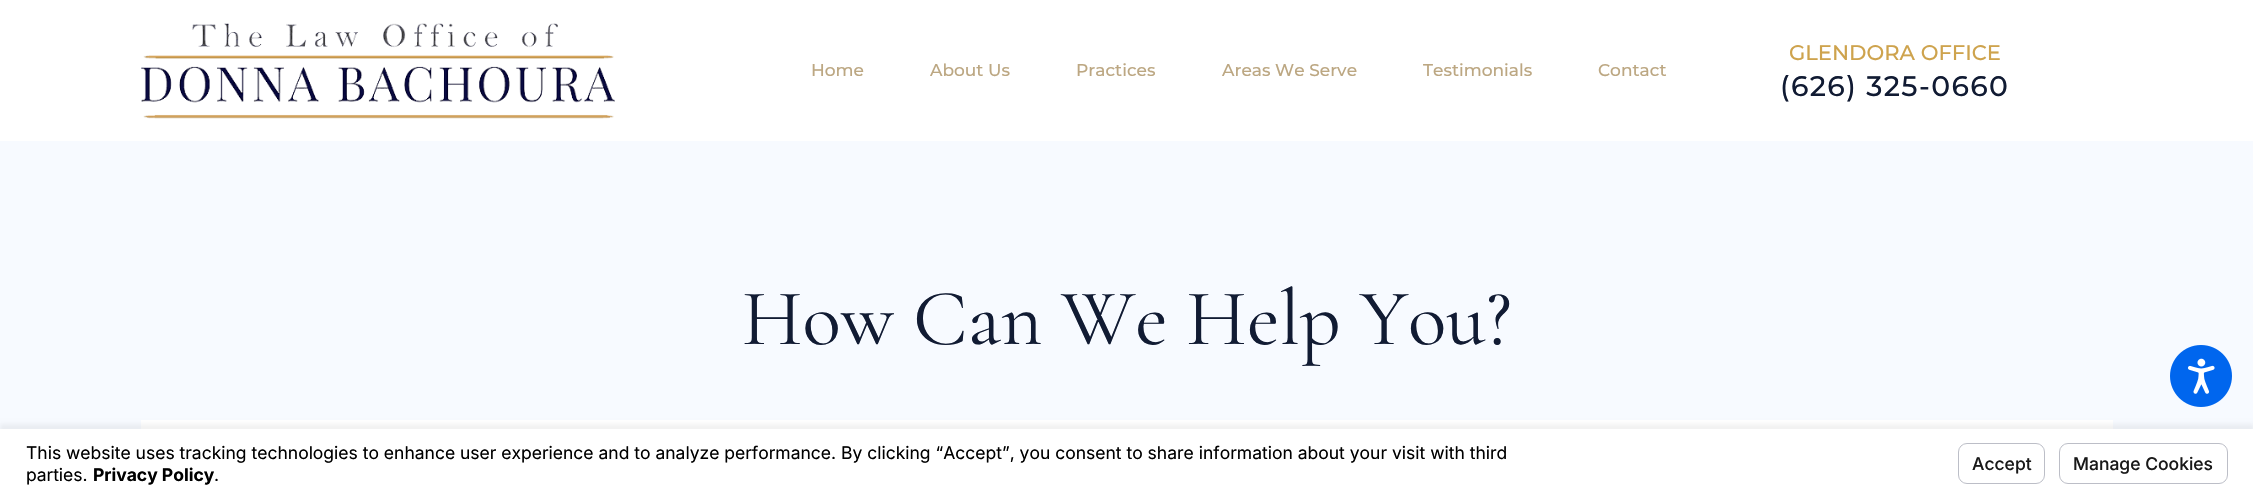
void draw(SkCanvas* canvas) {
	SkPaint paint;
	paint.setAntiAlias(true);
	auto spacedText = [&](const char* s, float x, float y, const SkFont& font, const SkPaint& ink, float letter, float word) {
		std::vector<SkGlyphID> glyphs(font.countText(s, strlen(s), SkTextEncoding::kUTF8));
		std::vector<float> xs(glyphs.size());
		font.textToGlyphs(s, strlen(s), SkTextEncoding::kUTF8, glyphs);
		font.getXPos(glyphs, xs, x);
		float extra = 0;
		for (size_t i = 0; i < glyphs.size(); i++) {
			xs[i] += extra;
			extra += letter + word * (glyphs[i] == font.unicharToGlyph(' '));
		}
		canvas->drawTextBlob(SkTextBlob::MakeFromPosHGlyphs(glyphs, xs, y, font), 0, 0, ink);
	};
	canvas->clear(0xfff7faff);
	paint.setColor(0xffffffff);
	canvas->drawRect(SkRect::MakeXYWH(0, 0, 2253, 141), paint);
	canvas->drawImageRect(SkImages::DeferredFromEncodedData(SkData::MakeFromFileName("img1.png")), SkRect::MakeXYWH(141, 23, 474, 96), SkSamplingOptions());
	SkFont f1(fontMgr->matchFamilyStyle("Montserrat", SkFontStyle(500, SkFontStyle::kNormal_Width, SkFontStyle::kUpright_Slant)), 17);
	f1.setSubpixel(true);
	paint.setColor(0xffbca782);
	canvas->drawString("Home", 811, 76, f1, paint);
	canvas->drawString("About Us", 930, 76, f1, paint);
	canvas->drawString("Practices", 1076, 76, f1, paint);
	canvas->drawString("Areas We Serve", 1222, 76, f1, paint);
	canvas->drawString("Testimonials", 1423, 76, f1, paint);
	canvas->drawString("Contact", 1598, 76, f1, paint);
	SkFont f2(fontMgr->matchFamilyStyle("Montserrat", SkFontStyle(500, SkFontStyle::kNormal_Width, SkFontStyle::kUpright_Slant)), 21.1);
	f2.setSubpixel(true);
	paint.setColor(0xffcea34d);
	canvas->drawString("GLENDORA OFFICE", 1789, 60, f2, paint);
	SkFont f3(fontMgr->matchFamilyStyle("Montserrat", SkFontStyle(500, SkFontStyle::kNormal_Width, SkFontStyle::kUpright_Slant)), 28.25);
	f3.setSubpixel(true);
	paint.setColor(0xff111b33);
	spacedText("(626) 325-0660", 1780, 96, f3, paint, 1.4, 0);
	canvas->drawImageRect(SkImages::DeferredFromEncodedData(SkData::MakeFromFileName("img2.png")), SkRect::MakeXYWH(2170, 345, 62, 62), SkSamplingOptions());
	SkFont f4(fontMgr->matchFamilyStyle("Cormorant Garamond", SkFontStyle(300, SkFontStyle::kNormal_Width, SkFontStyle::kUpright_Slant)), 79.75);
	f4.setSubpixel(true);
	canvas->drawString("How Can We Help You?", 742, 344, f4, paint);
	paint.setColor(0xffffffff);
	canvas->drawRect(SkRect::MakeXYWH(141, 420, 1972, 9), paint);
	paint.setColor(0x0d000000);
	paint.setMaskFilter(SkMaskFilter::MakeBlur(kNormal_SkBlurStyle, 2));
	canvas->drawRect(SkRect::MakeXYWH(0, 424, 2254, 69), paint);
	paint.setMaskFilter(nullptr);
	paint.setColor(0xffffffff);
	canvas->drawRect(SkRect::MakeXYWH(0, 429, 2253, 68), paint);
	SkFont f5(fontMgr->matchFamilyStyle("Inter", SkFontStyle::Normal()), 17.5);
	f5.setSubpixel(true);
	paint.setColor(0xff000000);
	canvas->drawString("This website uses tracking technologies to enhance user experience and to analyze performance. By clicking “Accept”, you consent to share information about your visit with third", 26, 459, f5, paint);
	canvas->drawString("parties.", 26, 481, f5, paint);
	SkFont f6(fontMgr->matchFamilyStyle("Inter", SkFontStyle::Bold()), 17.5);
	f6.setSubpixel(true);
	canvas->drawString("Privacy Policy", 93, 481, f6, paint);
	canvas->drawString(".", 214, 481, f5, paint);
	paint.setStroke(true);
	paint.setStrokeWidth(1);
	paint.setColor(0xffbcbec7);
	canvas->drawRoundRect(SkRect::MakeXYWH(1958.5, 443.5, 86, 40), 8.5, 8.5, paint);
	SkFont f7(fontMgr->matchFamilyStyle("Inter", SkFontStyle(500, SkFontStyle::kNormal_Width, SkFontStyle::kUpright_Slant)), 17.5);
	f7.setSubpixel(true);
	paint.setStroke(false);
	paint.setColor(0xff191919);
	canvas->drawString("Accept", 1972, 470, f7, paint);
	paint.setStroke(true);
	paint.setColor(0xffbcbec7);
	canvas->drawRoundRect(SkRect::MakeXYWH(2059.5, 443.5, 168, 40), 8.5, 8.5, paint);
	paint.setStroke(false);
	paint.setColor(0xff191919);
	canvas->drawString("Manage Cookies", 2073, 470, f7, paint);
}
